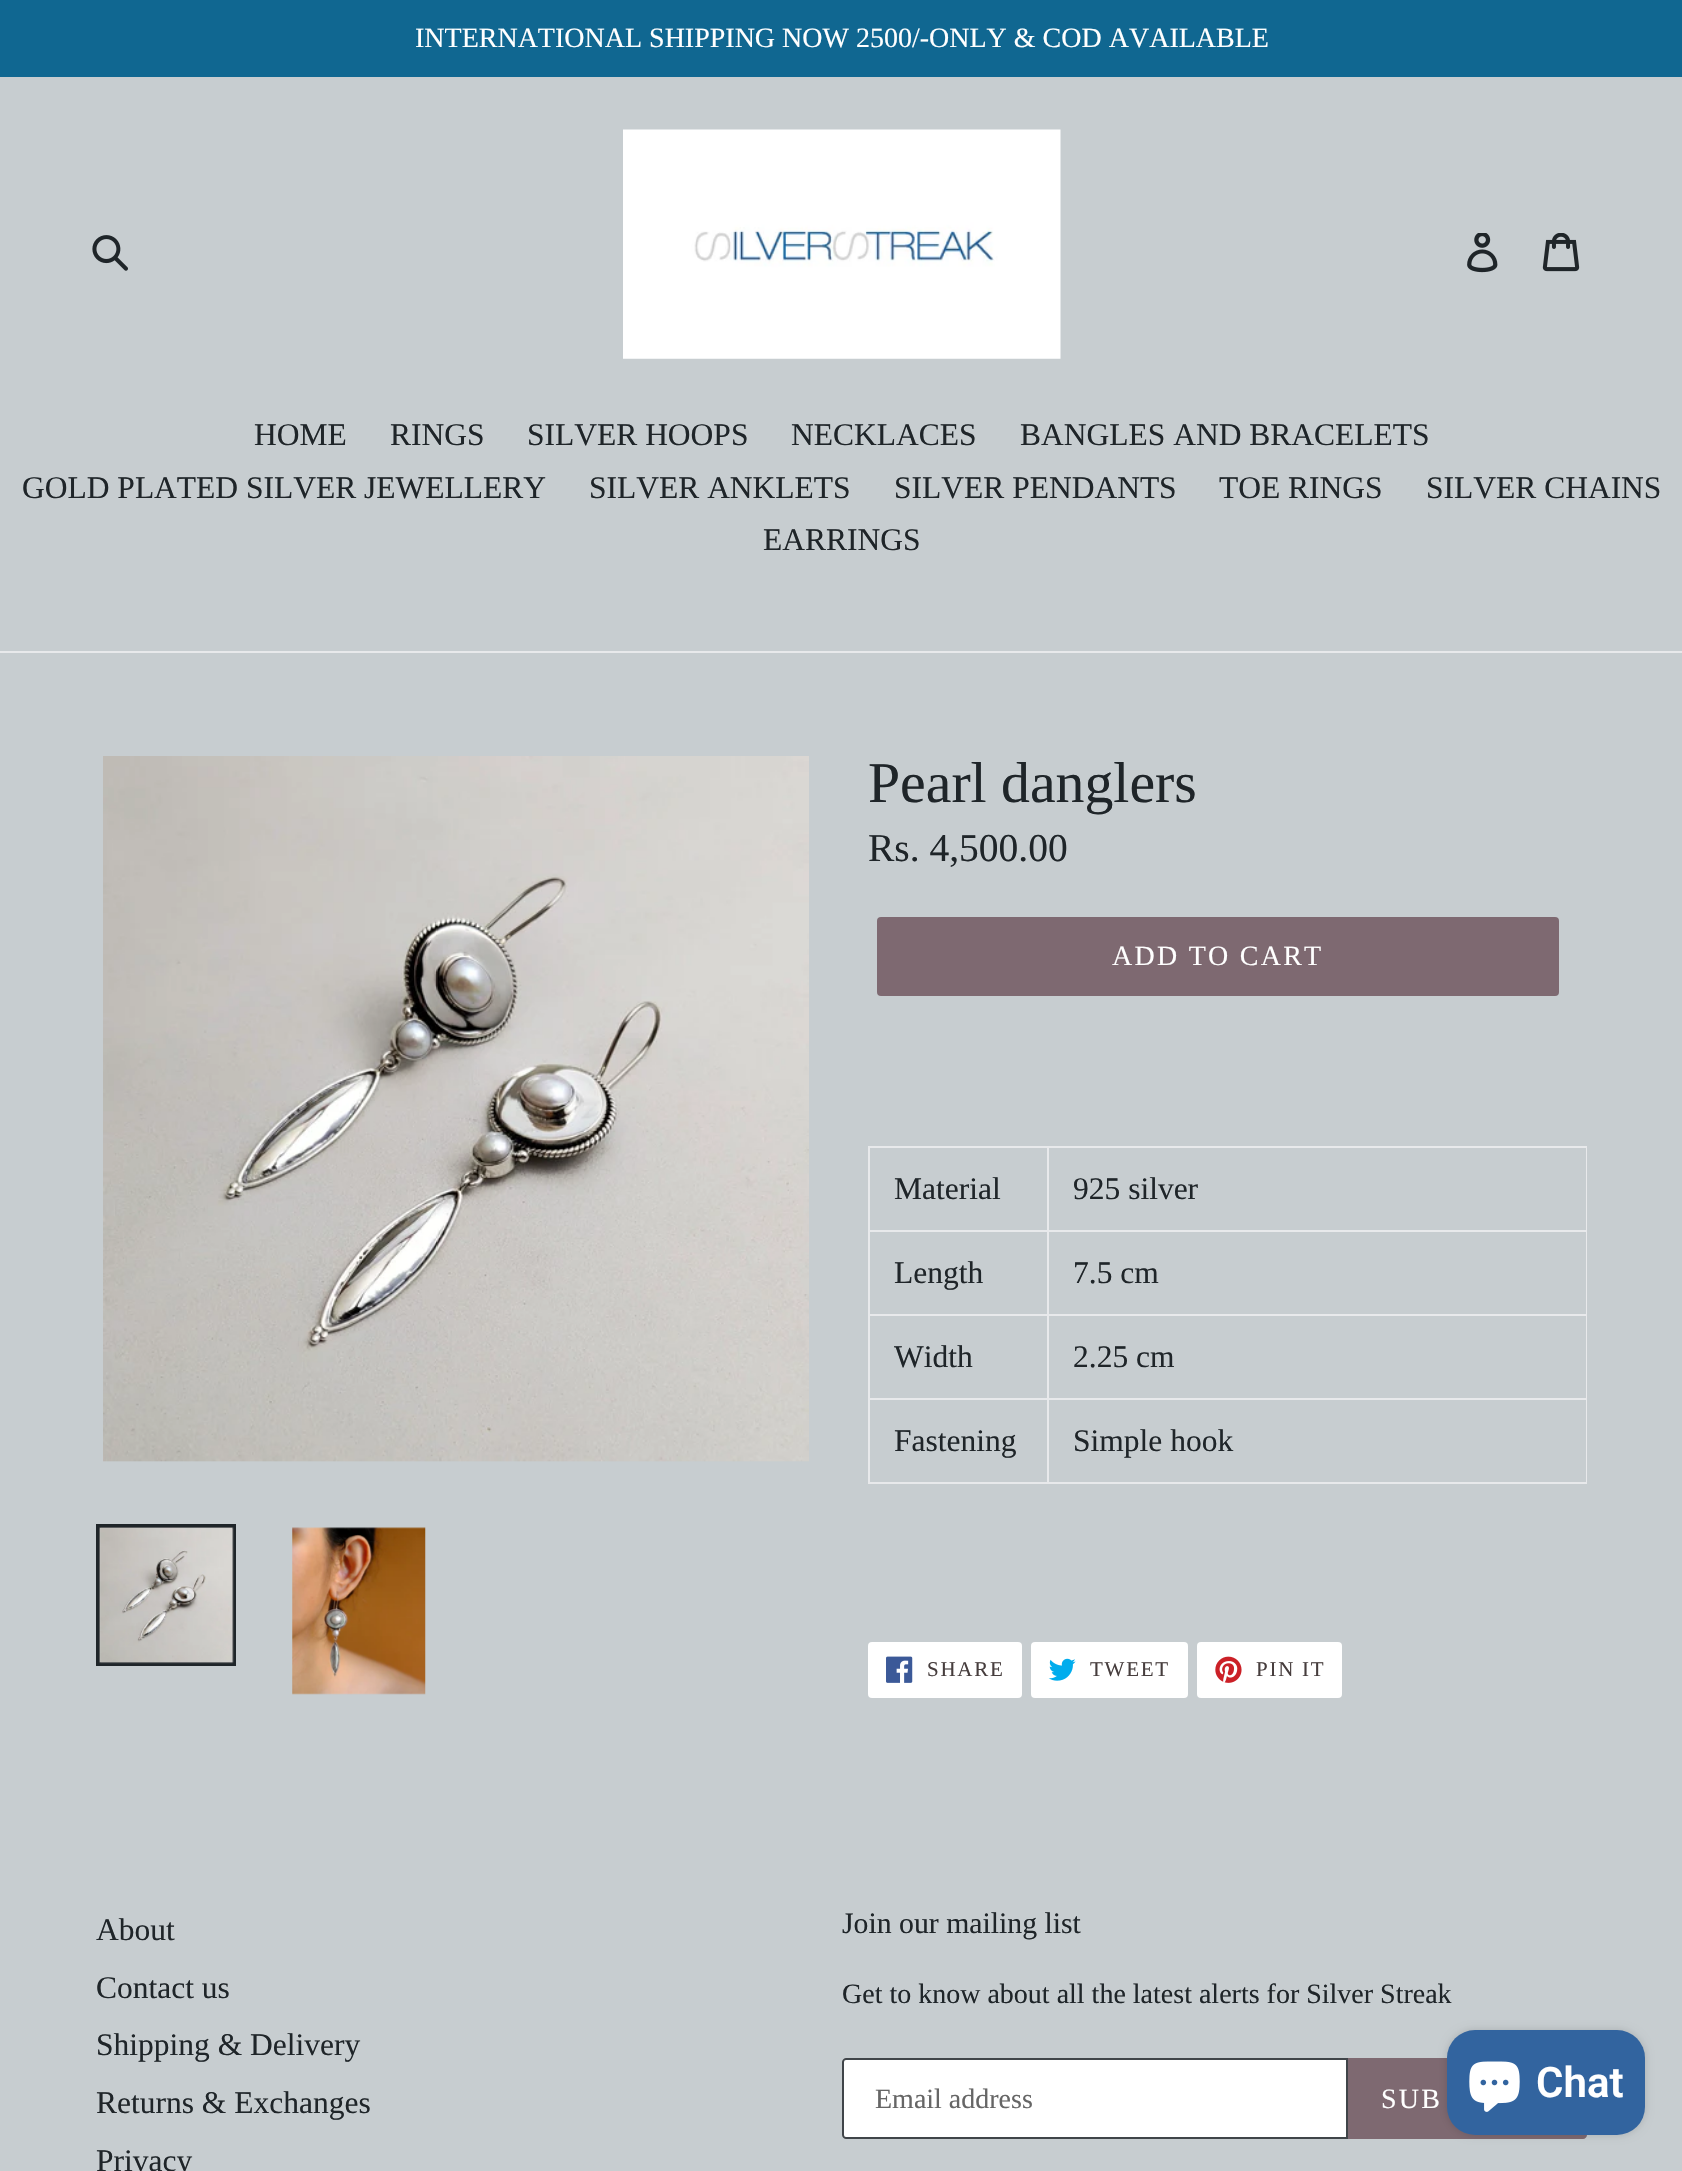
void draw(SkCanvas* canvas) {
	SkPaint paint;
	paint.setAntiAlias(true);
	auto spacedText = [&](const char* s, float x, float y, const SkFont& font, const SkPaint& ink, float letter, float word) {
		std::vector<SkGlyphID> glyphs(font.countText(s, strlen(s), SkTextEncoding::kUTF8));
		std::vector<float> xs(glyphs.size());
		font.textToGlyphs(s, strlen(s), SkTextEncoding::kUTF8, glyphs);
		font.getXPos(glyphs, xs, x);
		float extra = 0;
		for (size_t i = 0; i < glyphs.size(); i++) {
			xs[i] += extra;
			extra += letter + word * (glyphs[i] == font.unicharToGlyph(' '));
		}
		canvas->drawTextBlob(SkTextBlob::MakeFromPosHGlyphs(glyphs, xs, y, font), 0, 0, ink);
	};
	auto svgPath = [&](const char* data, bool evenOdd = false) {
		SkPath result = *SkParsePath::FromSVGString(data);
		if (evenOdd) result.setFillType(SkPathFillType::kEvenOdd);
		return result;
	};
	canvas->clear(0xffc7cdd0);
	paint.setColor(0xff106791);
	canvas->drawRect(SkRect::MakeXYWH(0, 0, 1682, 77), paint);
	SkFont f1(fontMgr->matchFamilyStyle("Liberation Serif", SkFontStyle::Normal()), 28);
	f1.setSubpixel(true);
	paint.setColor(0xffffffff);
	canvas->drawString("INTERNATIONAL SHIPPING NOW 2500/-ONLY & COD AVAILABLE", 415, 47, f1, paint);
	canvas->drawImageRect(SkImages::DeferredFromEncodedData(SkData::MakeFromFileName("img1.png")), SkRect::MakeXYWH(92, 235, 36, 36), SkSamplingOptions());
	canvas->drawImageRect(SkImages::DeferredFromEncodedData(SkData::MakeFromFileName("img2.png")), SkRect::MakeXYWH(623, 129, 438, 230), SkSamplingOptions());
	canvas->drawImageRect(SkImages::DeferredFromEncodedData(SkData::MakeFromFileName("img3.png")), SkRect::MakeXYWH(1467, 233, 31, 40), SkSamplingOptions());
	canvas->drawImageRect(SkImages::DeferredFromEncodedData(SkData::MakeFromFileName("img4.png")), SkRect::MakeXYWH(1542, 233, 38, 39), SkSamplingOptions());
	paint.setColor(0xffe8e9eb);
	canvas->drawRect(SkRect::MakeXYWH(0, 651, 1682, 2), paint);
	SkFont f2(fontMgr->matchFamilyStyle("Liberation Serif", SkFontStyle::Normal()), 31.5);
	f2.setSubpixel(true);
	paint.setColor(0xff1f2529);
	canvas->drawString("HOME", 254, 445, f2, paint);
	canvas->drawString("RINGS", 390, 445, f2, paint);
	canvas->drawString("SILVER HOOPS", 527, 445, f2, paint);
	canvas->drawString("NECKLACES", 791, 445, f2, paint);
	canvas->drawString("BANGLES AND BRACELETS", 1020, 445, f2, paint);
	canvas->drawString("GOLD PLATED SILVER JEWELLERY", 22, 498, f2, paint);
	canvas->drawString("SILVER ANKLETS", 589, 498, f2, paint);
	canvas->drawString("SILVER PENDANTS", 894, 498, f2, paint);
	canvas->drawString("TOE RINGS", 1219, 498, f2, paint);
	canvas->drawString("SILVER CHAINS", 1426, 498, f2, paint);
	canvas->drawString("EARRINGS", 763, 550, f2, paint);
	canvas->drawImageRect(SkImages::DeferredFromEncodedData(SkData::MakeFromFileName("img5.png")), SkRect::MakeXYWH(103, 756, 706, 706), SkSamplingOptions());
	paint.setStroke(true);
	paint.setStrokeWidth(4);
	canvas->drawRect(SkRect::MakeXYWH(98, 1526, 136, 138), paint);
	canvas->drawImageRect(SkImages::DeferredFromEncodedData(SkData::MakeFromFileName("img6.png")), SkRect::MakeXYWH(99, 1527, 135, 137), SkSamplingOptions());
	canvas->drawImageRect(SkImages::DeferredFromEncodedData(SkData::MakeFromFileName("img7.png")), SkRect::MakeXYWH(292, 1527, 134, 168), SkSamplingOptions());
	SkFont f3(fontMgr->matchFamilyStyle("Liberation Serif", SkFontStyle::Normal()), 57.75);
	f3.setSubpixel(true);
	paint.setStroke(false);
	canvas->drawString("Pearl danglers", 868, 802, f3, paint);
	SkFont f4(fontMgr->matchFamilyStyle("Liberation Serif", SkFontStyle::Normal()), 39.5);
	f4.setSubpixel(true);
	canvas->drawString("Rs. 4,500.00", 868, 861, f4, paint);
	paint.setColor(0xff7e6971);
	canvas->drawRoundRect(SkRect::MakeXYWH(877, 917, 682, 79), 4, 4, paint);
	paint.setColor(0xffffffff);
	spacedText("ADD TO CART", 1112, 965, f1, paint, 2.25, 0);
	paint.setColor(0xffe8e9eb);
	canvas->drawRect(SkRect::MakeXYWH(1047, 1146, 540, 2), paint);
	canvas->drawRect(SkRect::MakeXYWH(1047, 1230, 540, 2), paint);
	canvas->drawRect(SkRect::MakeXYWH(1047, 1314, 540, 2), paint);
	canvas->drawRect(SkRect::MakeXYWH(1047, 1398, 540, 2), paint);
	canvas->drawRect(SkRect::MakeXYWH(1586, 1398, 1, 86), paint);
	canvas->drawRect(SkRect::MakeXYWH(1047, 1482, 540, 2), paint);
	canvas->drawRect(SkRect::MakeXYWH(1047, 1398, 2, 86), paint);
	canvas->drawRect(SkRect::MakeXYWH(868, 1398, 180, 2), paint);
	canvas->drawRect(SkRect::MakeXYWH(1047, 1314, 2, 86), paint);
	canvas->drawRect(SkRect::MakeXYWH(868, 1314, 180, 2), paint);
	canvas->drawRect(SkRect::MakeXYWH(1047, 1230, 2, 86), paint);
	canvas->drawRect(SkRect::MakeXYWH(868, 1230, 180, 2), paint);
	canvas->drawRect(SkRect::MakeXYWH(1047, 1146, 2, 86), paint);
	canvas->drawRect(SkRect::MakeXYWH(868, 1146, 180, 2), paint);
	canvas->drawRect(SkRect::MakeXYWH(868, 1482, 180, 2), paint);
	canvas->drawRect(SkRect::MakeXYWH(868, 1398, 2, 86), paint);
	canvas->drawRect(SkRect::MakeXYWH(868, 1314, 2, 86), paint);
	canvas->drawRect(SkRect::MakeXYWH(868, 1230, 2, 86), paint);
	canvas->drawRect(SkRect::MakeXYWH(868, 1146, 2, 86), paint);
	paint.setColor(0xff1f2529);
	canvas->drawString("Material", 894, 1199, f2, paint);
	paint.setColor(0xffe8e9eb);
	canvas->drawRect(SkRect::MakeXYWH(1586, 1314, 1, 86), paint);
	canvas->drawRect(SkRect::MakeXYWH(1586, 1230, 1, 86), paint);
	canvas->drawRect(SkRect::MakeXYWH(1586, 1146, 1, 86), paint);
	paint.setColor(0xff1f2529);
	canvas->drawString("925 silver", 1073, 1199, f2, paint);
	canvas->drawString("Length", 894, 1283, f2, paint);
	canvas->drawString("7.5 cm", 1073, 1283, f2, paint);
	canvas->drawString("Width", 894, 1367, f2, paint);
	canvas->drawString("2.25 cm", 1073, 1367, f2, paint);
	canvas->drawString("Fastening", 894, 1451, f2, paint);
	canvas->drawString("Simple hook", 1073, 1451, f2, paint);
	paint.setColor(0xffffffff);
	canvas->drawRoundRect(SkRect::MakeXYWH(868, 1642, 154, 56), 4, 4, paint);
	canvas->drawImageRect(SkImages::DeferredFromEncodedData(SkData::MakeFromFileName("img8.png")), SkRect::MakeXYWH(886, 1656, 27, 27), SkSamplingOptions());
	SkFont f5(fontMgr->matchFamilyStyle("Liberation Serif", SkFontStyle::Normal()), 21);
	f5.setSubpixel(true);
	paint.setColor(0xff463d3d);
	spacedText("SHARE", 927, 1676, f5, paint, 1.75, 0);
	paint.setColor(0xffffffff);
	canvas->drawRoundRect(SkRect::MakeXYWH(1031, 1642, 157, 56), 4, 4, paint);
	canvas->drawImageRect(SkImages::DeferredFromEncodedData(SkData::MakeFromFileName("img9.png")), SkRect::MakeXYWH(1048, 1658, 28, 23), SkSamplingOptions());
	paint.setColor(0xff463d3d);
	spacedText("TWEET", 1090, 1676, f5, paint, 1.75, 0);
	paint.setColor(0xffffffff);
	canvas->drawRoundRect(SkRect::MakeXYWH(1197, 1642, 145, 56), 4, 4, paint);
	canvas->drawImageRect(SkImages::DeferredFromEncodedData(SkData::MakeFromFileName("img10.png")), SkRect::MakeXYWH(1215, 1656, 27, 27), SkSamplingOptions());
	paint.setColor(0xff463d3d);
	spacedText("PIN IT", 1256, 1676, f5, paint, 1.75, 0);
	paint.setColor(0xff1f2529);
	canvas->drawString("About", 96, 1940, f2, paint);
	canvas->drawString("Contact us", 96, 1998, f2, paint);
	canvas->drawString("Shipping & Delivery", 96, 2055, f2, paint);
	canvas->drawString("Returns & Exchanges", 96, 2113, f2, paint);
	canvas->drawString("Privacy", 96, 2171, f2, paint);
	SkFont f6(fontMgr->matchFamilyStyle("Liberation Serif", SkFontStyle::Normal()), 29.75);
	f6.setSubpixel(true);
	canvas->drawString("Join our mailing list", 842, 1933, f6, paint);
	canvas->drawString("Get to know about all the latest alerts for Silver Streak", 842, 2003, f1, paint);
	paint.setColor(0xffffffff);
	canvas->drawPath(svgPath("M846 2058H1348V2139H846C844 2139 842 2137 842 2135V2062C842 2060 844 2058 846 2058Z"), paint);
	paint.setStroke(true);
	paint.setStrokeWidth(2);
	paint.setColor(0xd91f2529);
	canvas->drawPath(svgPath("M846 2059H1347V2138H846C844.5 2138 843 2136.5 843 2135V2062C843 2060.5 844.5 2059 846 2059Z"), paint);
	paint.setStroke(false);
	paint.setColor(0xff666666);
	canvas->drawString("Email address", 875, 2108, f1, paint);
	paint.setColor(0xff7e6971);
	canvas->drawPath(svgPath("M1348 2058H1583C1585 2058 1587 2060 1587 2062V2135C1587 2137 1585 2139 1583 2139H1348Z"), paint);
	paint.setColor(0xffffffff);
	spacedText("SUB", 1381, 2108, f1, paint, 2.25, 0);
	paint.setColor(0x26000000);
	paint.setMaskFilter(SkMaskFilter::MakeBlur(kNormal_SkBlurStyle, 4.5));
	canvas->drawRoundRect(SkRect::MakeXYWH(1447, 2030, 198, 105), 28, 28, paint);
	paint.setMaskFilter(nullptr);
	paint.setColor(0xff32649f);
	canvas->drawRoundRect(SkRect::MakeXYWH(1447, 2030, 198, 105), 28, 28, paint);
	canvas->drawImageRect(SkImages::DeferredFromEncodedData(SkData::MakeFromFileName("img11.png")), SkRect::MakeXYWH(1469, 2061, 51, 51), SkSamplingOptions());
	SkFont f7(fontMgr->matchFamilyStyle("Roboto", SkFontStyle(600, SkFontStyle::kNormal_Width, SkFontStyle::kUpright_Slant)), 42);
	f7.setSubpixel(true);
	paint.setColor(0xffffffff);
	canvas->drawString("Chat", 1536, 2097, f7, paint);
}
